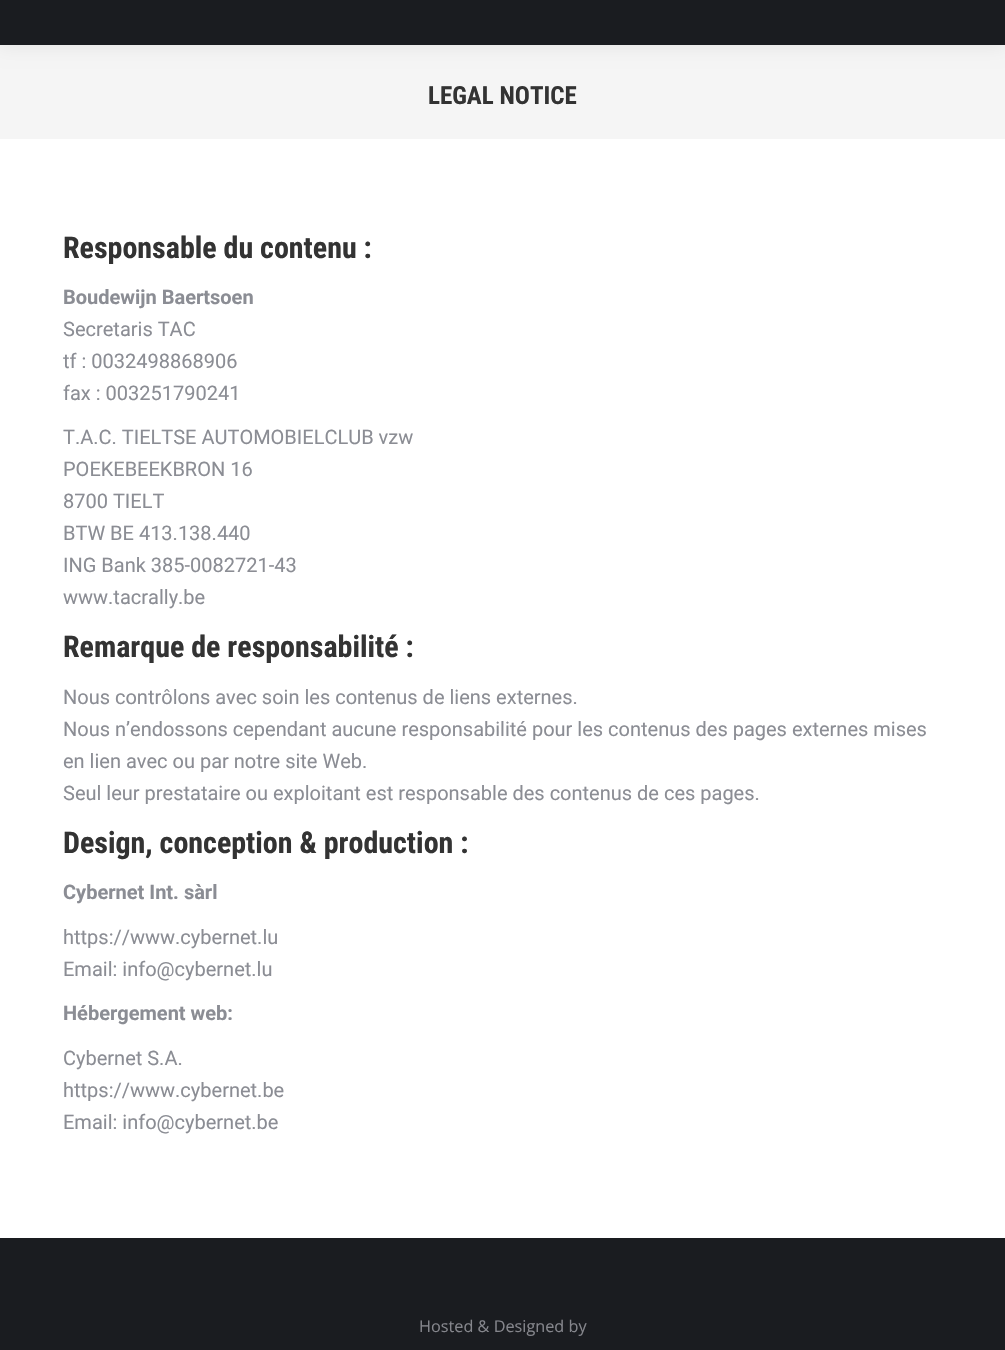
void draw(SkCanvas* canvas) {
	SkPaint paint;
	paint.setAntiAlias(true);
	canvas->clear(0xffffffff);
	paint.setColor(0xfff5f5f5);
	canvas->drawRect(SkRect::MakeXYWH(0, 45, 1005, 94), paint);
	paint.setColor(0x12000000);
	paint.setMaskFilter(SkMaskFilter::MakeBlur(kNormal_SkBlurStyle, 9.5));
	canvas->drawRect(SkRect::MakeXYWH(-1, -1, 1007, 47), paint);
	paint.setMaskFilter(nullptr);
	paint.setColor(0xff1a1c20);
	canvas->drawRect(SkRect::MakeXYWH(0, 0, 1005, 45), paint);
	SkFont f1(fontMgr->matchFamilyStyle("Roboto Condensed", SkFontStyle::Bold()), 25);
	f1.setSubpixel(true);
	paint.setColor(0xff333333);
	canvas->drawString("LEGAL NOTICE", 428, 104, f1, paint);
	SkFont f2(fontMgr->matchFamilyStyle("Roboto Condensed", SkFontStyle::Bold()), 30);
	f2.setSubpixel(true);
	canvas->drawString("Responsable du contenu :", 63, 258, f2, paint);
	SkFont f3(fontMgr->matchFamilyStyle("Roboto", SkFontStyle::Bold()), 20);
	f3.setSubpixel(true);
	paint.setColor(0xff8b8d94);
	canvas->drawString("Boudewijn Baertsoen", 63, 304, f3, paint);
	SkFont f4(fontMgr->matchFamilyStyle("Roboto", SkFontStyle::Normal()), 20);
	f4.setSubpixel(true);
	canvas->drawString("Secretaris TAC", 63, 336, f4, paint);
	canvas->drawString("tf : 0032498868906", 63, 368, f4, paint);
	canvas->drawString("fax : 003251790241", 63, 400, f4, paint);
	canvas->drawString("T.A.C. TIELTSE AUTOMOBIELCLUB vzw", 63, 444, f4, paint);
	canvas->drawString("POEKEBEEKBRON 16", 63, 476, f4, paint);
	canvas->drawString("8700 TIELT", 63, 508, f4, paint);
	canvas->drawString("BTW BE 413.138.440", 63, 540, f4, paint);
	canvas->drawString("ING Bank 385-0082721-43", 63, 572, f4, paint);
	canvas->drawString("www.tacrally.be", 63, 604, f4, paint);
	paint.setColor(0xff333333);
	canvas->drawString("Remarque de responsabilité :", 63, 657, f2, paint);
	paint.setColor(0xff8b8d94);
	canvas->drawString("Nous contrôlons avec soin les contenus de liens externes.", 63, 704, f4, paint);
	canvas->drawString("Nous n’endossons cependant aucune responsabilité pour les contenus des pages externes mises", 63, 736, f4, paint);
	canvas->drawString("en lien avec ou par notre site Web.", 63, 768, f4, paint);
	canvas->drawString("Seul leur prestataire ou exploitant est responsable des contenus de ces pages.", 63, 800, f4, paint);
	paint.setColor(0xff333333);
	canvas->drawString("Design, conception & production :", 63, 853, f2, paint);
	paint.setColor(0xff8b8d94);
	canvas->drawString("Cybernet Int. sàrl", 63, 899, f3, paint);
	canvas->drawString("https://www.cybernet.lu", 63, 944, f4, paint);
	canvas->drawString("Email: info@cybernet.lu", 63, 976, f4, paint);
	canvas->drawString("Hébergement web:", 63, 1020, f3, paint);
	canvas->drawString("Cybernet S.A.", 63, 1065, f4, paint);
	canvas->drawString("https://www.cybernet.be", 63, 1097, f4, paint);
	canvas->drawString("Email: info@cybernet.be", 63, 1129, f4, paint);
	paint.setColor(0xff1a1c20);
	canvas->drawRect(SkRect::MakeXYWH(0, 1238, 1005, 112), paint);
	SkFont f5(fontMgr->matchFamilyStyle("Open Sans", SkFontStyle::Normal()), 16.25);
	f5.setSubpixel(true);
	paint.setColor(0xff85868c);
	canvas->drawString("Hosted & Designed by", 419, 1332, f5, paint);
}
